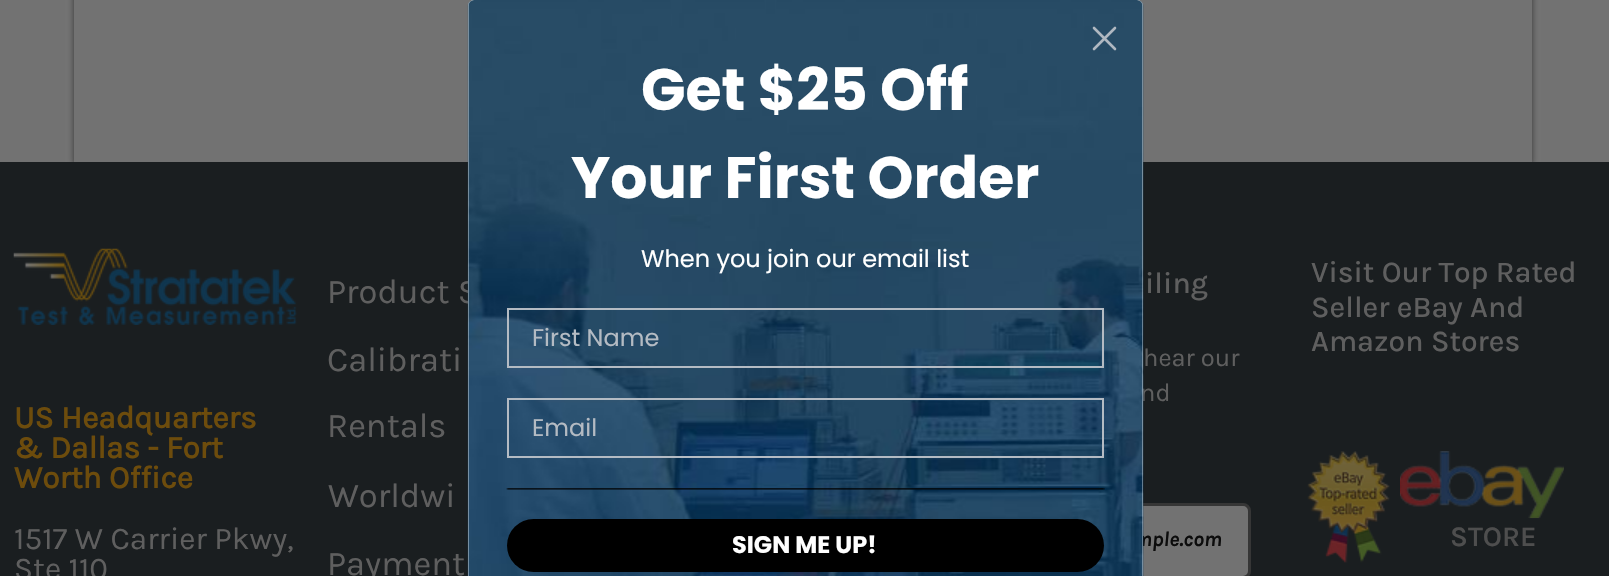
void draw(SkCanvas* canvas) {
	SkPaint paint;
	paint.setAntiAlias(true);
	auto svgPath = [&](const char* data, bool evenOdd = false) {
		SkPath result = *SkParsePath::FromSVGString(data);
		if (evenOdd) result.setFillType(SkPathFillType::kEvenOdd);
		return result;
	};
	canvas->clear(0xff727272);
	canvas->save();
	canvas->clipPath(svgPath("M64 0H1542V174H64ZM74-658H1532V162H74Z", true), true);
	paint.setColor(0x990c0c0c);
	paint.setMaskFilter(SkMaskFilter::MakeBlur(kNormal_SkBlurStyle, 3));
	canvas->drawRect(SkRect::MakeXYWH(74, -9, 1458, 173), paint);
	paint.setMaskFilter(nullptr);
	canvas->restore();
	paint.setColor(0xff1a1e20);
	canvas->drawRect(SkRect::MakeXYWH(0, 162, 1609, 414), paint);
	SkFont f1(fontMgr->matchFamilyStyle("Karla", SkFontStyle::Normal()), 34.5);
	f1.setSubpixel(true);
	paint.setColor(0xff5f5f5f);
	canvas->drawString("Product S", 327, 303, f1, paint);
	SkFont f2(fontMgr->matchFamilyStyle("Karla", SkFontStyle::Normal()), 25.5);
	f2.setSubpixel(true);
	canvas->drawString("nd", 1140, 401, f2, paint);
	paint.setColor(0xff727272);
	canvas->drawRoundRect(SkRect::MakeXYWH(985.5, 504.5, 264, 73), 6.5, 6.5, paint);
	paint.setStroke(true);
	paint.setStrokeWidth(3);
	paint.setColor(0xff363636);
	canvas->drawRoundRect(SkRect::MakeXYWH(985.5, 504.5, 264, 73), 6.5, 6.5, paint);
	SkFont f3(fontMgr->matchFamilyStyle("Karla", SkFontStyle::BoldItalic()), 21);
	f3.setSubpixel(true);
	paint.setStroke(false);
	paint.setColor(0xff0c0c0c);
	canvas->drawString("mple.com", 1134, 546, f3, paint);
	paint.setColor(0xffffffff);
	canvas->drawPath(svgPath("M474 0H1137C1140.5 0 1143 2.5 1143 6V576H468V6C468 2.5 470.5 0 474 0Z"), paint);
	canvas->drawImageRect(SkImages::DeferredFromEncodedData(SkData::MakeFromFileName("img1.png")), SkRect::MakeXYWH(467, 0, 677, 576), SkSamplingOptions());
	paint.setStroke(true);
	paint.setStrokeWidth(2.6);
	paint.setStrokeCap(SkPaint::kRound_Cap);
	paint.setStrokeJoin(SkPaint::kRound_Join);
	paint.setColor(0xffb0b8c1);
	canvas->drawPath(svgPath("M1094 28L1115 49M1094 49L1115 28Z"), paint);
	SkFont f4(fontMgr->matchFamilyStyle("Poppins", SkFontStyle::Bold()), 58.5);
	f4.setSubpixel(true);
	paint.setStroke(false);
	paint.setColor(0xffffffff);
	canvas->drawString("Get $25 Off", 641, 110, f4, paint);
	canvas->drawString("Your First Order", 571, 198, f4, paint);
	SkFont f5(fontMgr->matchFamilyStyle("Poppins", SkFontStyle::Normal()), 24);
	f5.setSubpixel(true);
	canvas->drawString("When you join our email list", 641, 267, f5, paint);
	paint.setStroke(true);
	paint.setStrokeWidth(2);
	paint.setStrokeCap(SkPaint::kButt_Cap);
	paint.setStrokeJoin(SkPaint::kMiter_Join);
	paint.setColor(0xffb4bbc3);
	canvas->drawRect(SkRect::MakeXYWH(508, 309, 595, 58), paint);
	paint.setStroke(false);
	canvas->drawString("First Name", 532, 346, f5, paint);
	paint.setStroke(true);
	canvas->drawRect(SkRect::MakeXYWH(508, 399, 595, 58), paint);
	paint.setStroke(false);
	canvas->drawString("Email", 532, 436, f5, paint);
	canvas->drawImageRect(SkImages::DeferredFromEncodedData(SkData::MakeFromFileName("img2.png")), SkRect::MakeXYWH(506, 488, 599, 2), SkSamplingOptions());
	paint.setColor(0xff000000);
	canvas->drawRoundRect(SkRect::MakeXYWH(507, 519, 597, 53), 26.5, 26.5, paint);
	SkFont f6(fontMgr->matchFamilyStyle("Poppins", SkFontStyle::Bold()), 24);
	f6.setSubpixel(true);
	paint.setColor(0xffffffff);
	canvas->drawString("SIGN ME UP!", 732, 553, f6, paint);
	canvas->drawImageRect(SkImages::DeferredFromEncodedData(SkData::MakeFromFileName("img3.png")), SkRect::MakeXYWH(13, 248, 284, 77), SkSamplingOptions());
	SkFont f7(fontMgr->matchFamilyStyle("Karla", SkFontStyle::Bold()), 31.5);
	f7.setSubpixel(true);
	paint.setColor(0xff6d4c0c);
	canvas->drawString("US Headquarters", 14, 428, f7, paint);
	canvas->drawString("& Dallas - Fort", 14, 458, f7, paint);
	canvas->drawString("Worth Office", 14, 488, f7, paint);
	SkFont f8(fontMgr->matchFamilyStyle("Karla", SkFontStyle::Normal()), 31.5);
	f8.setSubpixel(true);
	paint.setColor(0xff5f5f5f);
	canvas->drawString("1517 W Carrier Pkwy,", 14, 549, f8, paint);
	canvas->drawString("Ste 110", 14, 579, f8, paint);
	canvas->drawString("Calibrati", 327, 371, f1, paint);
	canvas->drawString("Rentals", 327, 437, f1, paint);
	canvas->drawString("Worldwi", 328, 507, f1, paint);
	canvas->drawString("Payment", 327, 575, f1, paint);
	SkFont f9(fontMgr->matchFamilyStyle("Karla", SkFontStyle(500, SkFontStyle::kNormal_Width, SkFontStyle::kUpright_Slant)), 30);
	f9.setSubpixel(true);
	canvas->drawString("iling", 1145, 293, f9, paint);
	canvas->drawString("hear our", 1143, 366, f2, paint);
	canvas->drawString("Visit Our Top Rated", 1311, 282, f9, paint);
	canvas->drawString("Seller eBay And", 1311, 317, f9, paint);
	canvas->drawString("Amazon Stores", 1311, 351, f9, paint);
	canvas->drawImageRect(SkImages::DeferredFromEncodedData(SkData::MakeFromFileName("img4.png")), SkRect::MakeXYWH(1307, 451, 83, 112), SkSamplingOptions());
	canvas->drawImageRect(SkImages::DeferredFromEncodedData(SkData::MakeFromFileName("img5.png")), SkRect::MakeXYWH(1400, 451, 164, 68), SkSamplingOptions());
	SkFont f10(fontMgr->matchFamilyStyle("Karla", SkFontStyle(600, SkFontStyle::kNormal_Width, SkFontStyle::kUpright_Slant)), 28.5);
	f10.setSubpixel(true);
	paint.setColor(0xff4e4e4e);
	canvas->drawString("STORE", 1450, 546, f10, paint);
}
